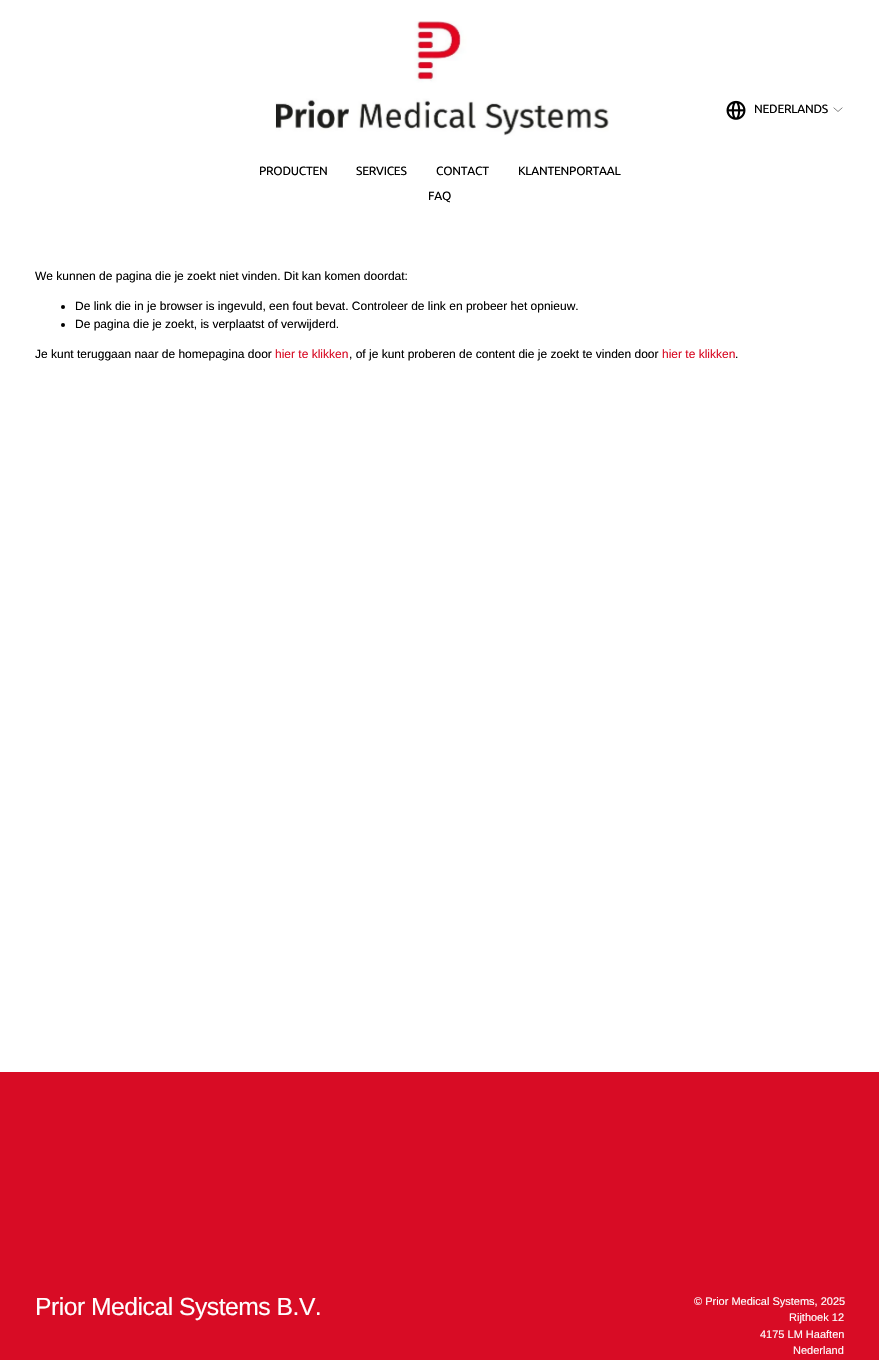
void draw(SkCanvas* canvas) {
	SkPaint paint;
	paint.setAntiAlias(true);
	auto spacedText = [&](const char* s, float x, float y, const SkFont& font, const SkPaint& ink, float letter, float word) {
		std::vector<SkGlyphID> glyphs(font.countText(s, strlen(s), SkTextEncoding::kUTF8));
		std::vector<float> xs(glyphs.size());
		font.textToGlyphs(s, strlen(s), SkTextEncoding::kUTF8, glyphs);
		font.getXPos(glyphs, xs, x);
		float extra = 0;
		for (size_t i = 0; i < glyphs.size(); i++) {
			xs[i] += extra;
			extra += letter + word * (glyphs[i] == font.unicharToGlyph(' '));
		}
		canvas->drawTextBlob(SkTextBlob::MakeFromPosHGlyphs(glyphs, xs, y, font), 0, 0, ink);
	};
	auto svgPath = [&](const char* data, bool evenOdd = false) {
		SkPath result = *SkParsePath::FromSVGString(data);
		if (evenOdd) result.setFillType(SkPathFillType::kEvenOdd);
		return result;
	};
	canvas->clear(0xffffffff);
	canvas->drawImageRect(SkImages::DeferredFromEncodedData(SkData::MakeFromFileName("img1.png")), SkRect::MakeXYWH(726, 100, 20, 20), SkSamplingOptions());
	SkFont f1(fontMgr->matchFamilyStyle("Ubuntu", SkFontStyle::Normal()), 12);
	f1.setSubpixel(true);
	paint.setColor(0xff000000);
	spacedText("NEDERLANDS", 754, 113, f1, paint, -0.25, 0);
	paint.setStroke(true);
	paint.setStrokeWidth(0.5);
	paint.setStrokeCap(SkPaint::kSquare_Cap);
	canvas->drawPath(svgPath("M842 108L838 111.5L834 108"), paint);
	canvas->drawImageRect(SkImages::DeferredFromEncodedData(SkData::MakeFromFileName("img2.png")), SkRect::MakeXYWH(275, 21, 334, 115), SkSamplingOptions());
	paint.setStroke(false);
	spacedText("PRODUCTEN", 259, 175, f1, paint, -0.25, 0);
	spacedText("SERVICES", 356, 175, f1, paint, -0.25, 0);
	spacedText("CONTACT", 436, 175, f1, paint, -0.25, 0);
	spacedText("KLANTENPORTAAL", 518, 175, f1, paint, -0.25, 0);
	spacedText("FAQ", 428, 200, f1, paint, -0.25, 0);
	SkFont f2(fontMgr->matchFamilyStyle("Liberation Sans", SkFontStyle::Normal()), 12);
	f2.setSubpixel(true);
	canvas->drawString("We kunnen de pagina die je zoekt niet vinden. Dit kan komen doordat:", 35, 280, f2, paint);
	canvas->drawCircle(63, 307, 2, paint);
	canvas->drawString("De link die in je browser is ingevuld, een fout bevat. Controleer de link en probeer het opnieuw.", 75, 310, f2, paint);
	canvas->drawCircle(63, 325, 2, paint);
	canvas->drawString("De pagina die je zoekt, is verplaatst of verwijderd.", 75, 328, f2, paint);
	canvas->drawString("Je kunt teruggaan naar de homepagina door", 35, 358, f2, paint);
	paint.setColor(0xffd80c25);
	canvas->drawString("hier te klikken", 275, 358, f2, paint);
	paint.setColor(0xff000000);
	canvas->drawString(", of je kunt proberen de content die je zoekt te vinden door", 349, 358, f2, paint);
	paint.setColor(0xffd80c25);
	canvas->drawString("hier te klikken", 662, 358, f2, paint);
	paint.setColor(0xff000000);
	canvas->drawString(".", 735, 358, f2, paint);
	paint.setColor(0xffd80c25);
	canvas->drawRect(SkRect::MakeXYWH(0, 1072, 879, 288), paint);
	SkFont f3(fontMgr->matchFamilyStyle("Liberation Sans", SkFontStyle::Normal()), 24.7);
	f3.setSubpixel(true);
	paint.setColor(0xffffffff);
	spacedText("Prior Medical Systems B.V.", 35, 1315, f3, paint, -0.5, 0);
	SkFont f4(fontMgr->matchFamilyStyle("Liberation Sans", SkFontStyle::Normal()), 11);
	f4.setSubpixel(true);
	canvas->drawString("© Prior Medical Systems, 2025", 694, 1305, f4, paint);
	canvas->drawString("Rijthoek 12", 789, 1321, f4, paint);
	canvas->drawString("4175 LM Haaften", 760, 1338, f4, paint);
	canvas->drawString("Nederland", 793, 1354, f4, paint);
}
